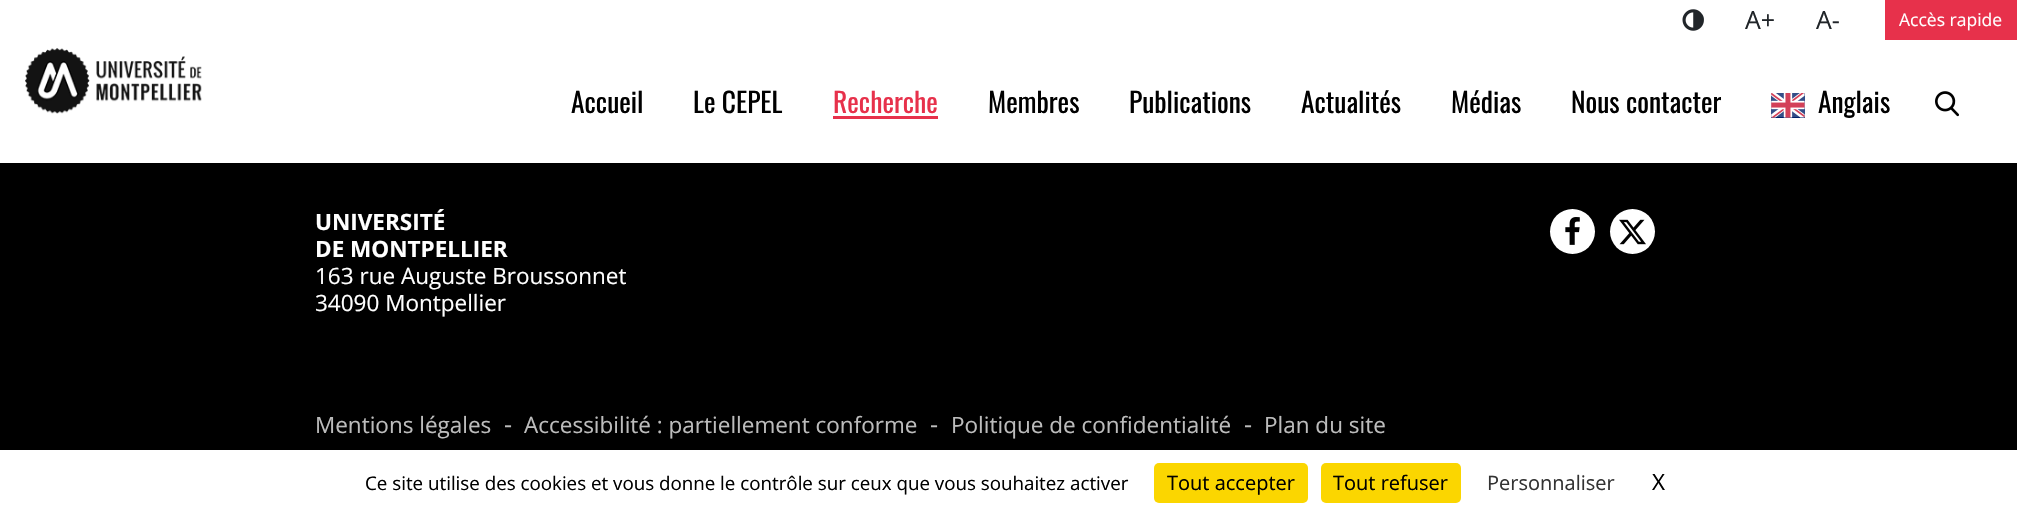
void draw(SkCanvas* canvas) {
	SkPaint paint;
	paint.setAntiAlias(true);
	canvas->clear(0xff000000);
	paint.setColor(0xffffffff);
	canvas->drawRect(SkRect::MakeXYWH(0, 0, 2017, 163), paint);
	canvas->drawImageRect(SkImages::DeferredFromEncodedData(SkData::MakeFromFileName("img1.png")), SkRect::MakeXYWH(25, 48, 177, 66), SkSamplingOptions());
	canvas->drawImageRect(SkImages::DeferredFromEncodedData(SkData::MakeFromFileName("img2.png")), SkRect::MakeXYWH(1682, 9, 22, 22), SkSamplingOptions());
	SkFont f1(fontMgr->matchFamilyStyle("Open Sans", SkFontStyle::Normal()), 25);
	f1.setSubpixel(true);
	paint.setColor(0xff212529);
	canvas->drawString("A+", 1745, 29, f1, paint);
	canvas->drawString("A-", 1816, 29, f1, paint);
	paint.setColor(0xffe7314b);
	canvas->drawRect(SkRect::MakeXYWH(1885, 0, 132, 40), paint);
	SkFont f2(fontMgr->matchFamilyStyle("Open Sans", SkFontStyle::Normal()), 17.5);
	f2.setSubpixel(true);
	paint.setColor(0xffffffff);
	canvas->drawString("Accès rapide", 1899, 26, f2, paint);
	SkFont f3(fontMgr->matchFamilyStyle("Oswald", SkFontStyle::Normal()), 27.5);
	f3.setSubpixel(true);
	paint.setColor(0xff000000);
	canvas->drawString("Accueil", 571, 113, f3, paint);
	canvas->drawString("Le CEPEL", 693, 113, f3, paint);
	paint.setColor(0xffe7314b);
	canvas->drawString("Recherche", 833, 113, f3, paint);
	canvas->drawRect(SkRect::MakeXYWH(833, 116, 105, 3), paint);
	paint.setColor(0xff000000);
	canvas->drawString("Membres", 988, 113, f3, paint);
	canvas->drawString("Publications", 1129, 113, f3, paint);
	canvas->drawString("Actualités", 1301, 113, f3, paint);
	canvas->drawString("Médias", 1451, 113, f3, paint);
	canvas->drawString("Nous contacter", 1571, 113, f3, paint);
	canvas->drawImageRect(SkImages::DeferredFromEncodedData(SkData::MakeFromFileName("img3.png")), SkRect::MakeXYWH(1771, 93, 34, 25), SkSamplingOptions());
	canvas->drawString("Anglais", 1818, 113, f3, paint);
	canvas->drawImageRect(SkImages::DeferredFromEncodedData(SkData::MakeFromFileName("img4.png")), SkRect::MakeXYWH(1935, 91, 24, 26), SkSamplingOptions());
	SkFont f4(fontMgr->matchFamilyStyle("Open Sans", SkFontStyle::Bold()), 22.5);
	f4.setSubpixel(true);
	paint.setColor(0xffffffff);
	canvas->drawString("UNIVERSITÉ", 315, 230, f4, paint);
	canvas->drawString("DE MONTPELLIER", 315, 257, f4, paint);
	SkFont f5(fontMgr->matchFamilyStyle("Open Sans", SkFontStyle::Normal()), 22.5);
	f5.setSubpixel(true);
	canvas->drawString("163 rue Auguste Broussonnet", 315, 284, f5, paint);
	canvas->drawString("34090 Montpellier", 315, 311, f5, paint);
	canvas->drawCircle(1572.5, 231.5, 22.5, paint);
	canvas->drawImageRect(SkImages::DeferredFromEncodedData(SkData::MakeFromFileName("img5.png")), SkRect::MakeXYWH(1565, 217, 15, 28), SkSamplingOptions());
	canvas->drawCircle(1632.5, 231.5, 22.5, paint);
	canvas->drawImageRect(SkImages::DeferredFromEncodedData(SkData::MakeFromFileName("img6.png")), SkRect::MakeXYWH(1619, 219, 27, 26), SkSamplingOptions());
	paint.setColor(0xffbcbcbc);
	canvas->drawString("Mentions légales", 315, 433, f5, paint);
	canvas->drawString("-", 504, 433, f1, paint);
	canvas->drawString("Accessibilité : partiellement conforme", 524, 433, f5, paint);
	canvas->drawString("-", 930, 433, f1, paint);
	canvas->drawString("Politique de confidentialité", 951, 433, f5, paint);
	canvas->drawString("-", 1244, 433, f1, paint);
	canvas->drawString("Plan du site", 1264, 433, f5, paint);
	paint.setColor(0xffffffff);
	canvas->drawRect(SkRect::MakeXYWH(0, 450, 2017, 64), paint);
	SkFont f6(fontMgr->matchFamilyStyle("Open Sans", SkFontStyle::Normal()), 18.75);
	f6.setSubpixel(true);
	paint.setColor(0xff000000);
	canvas->drawString("Ce site utilise des cookies et vous donne le contrôle sur ceux que vous souhaitez activer", 365, 490, f6, paint);
	paint.setColor(0xfffbd600);
	canvas->drawRoundRect(SkRect::MakeXYWH(1154, 463, 154, 40), 5, 5, paint);
	SkFont f7(fontMgr->matchFamilyStyle("Open Sans", SkFontStyle::Normal()), 20);
	f7.setSubpixel(true);
	paint.setColor(0xff000000);
	canvas->drawString("Tout accepter", 1167, 490, f7, paint);
	paint.setColor(0xfffbd600);
	canvas->drawRoundRect(SkRect::MakeXYWH(1321, 463, 140, 40), 5, 5, paint);
	paint.setColor(0xff000000);
	canvas->drawString("Tout refuser", 1333, 490, f7, paint);
	paint.setColor(0xff333333);
	canvas->drawString("Personnaliser", 1487, 490, f7, paint);
	paint.setColor(0xff000000);
	canvas->drawString("X", 1652, 490, f5, paint);
}
